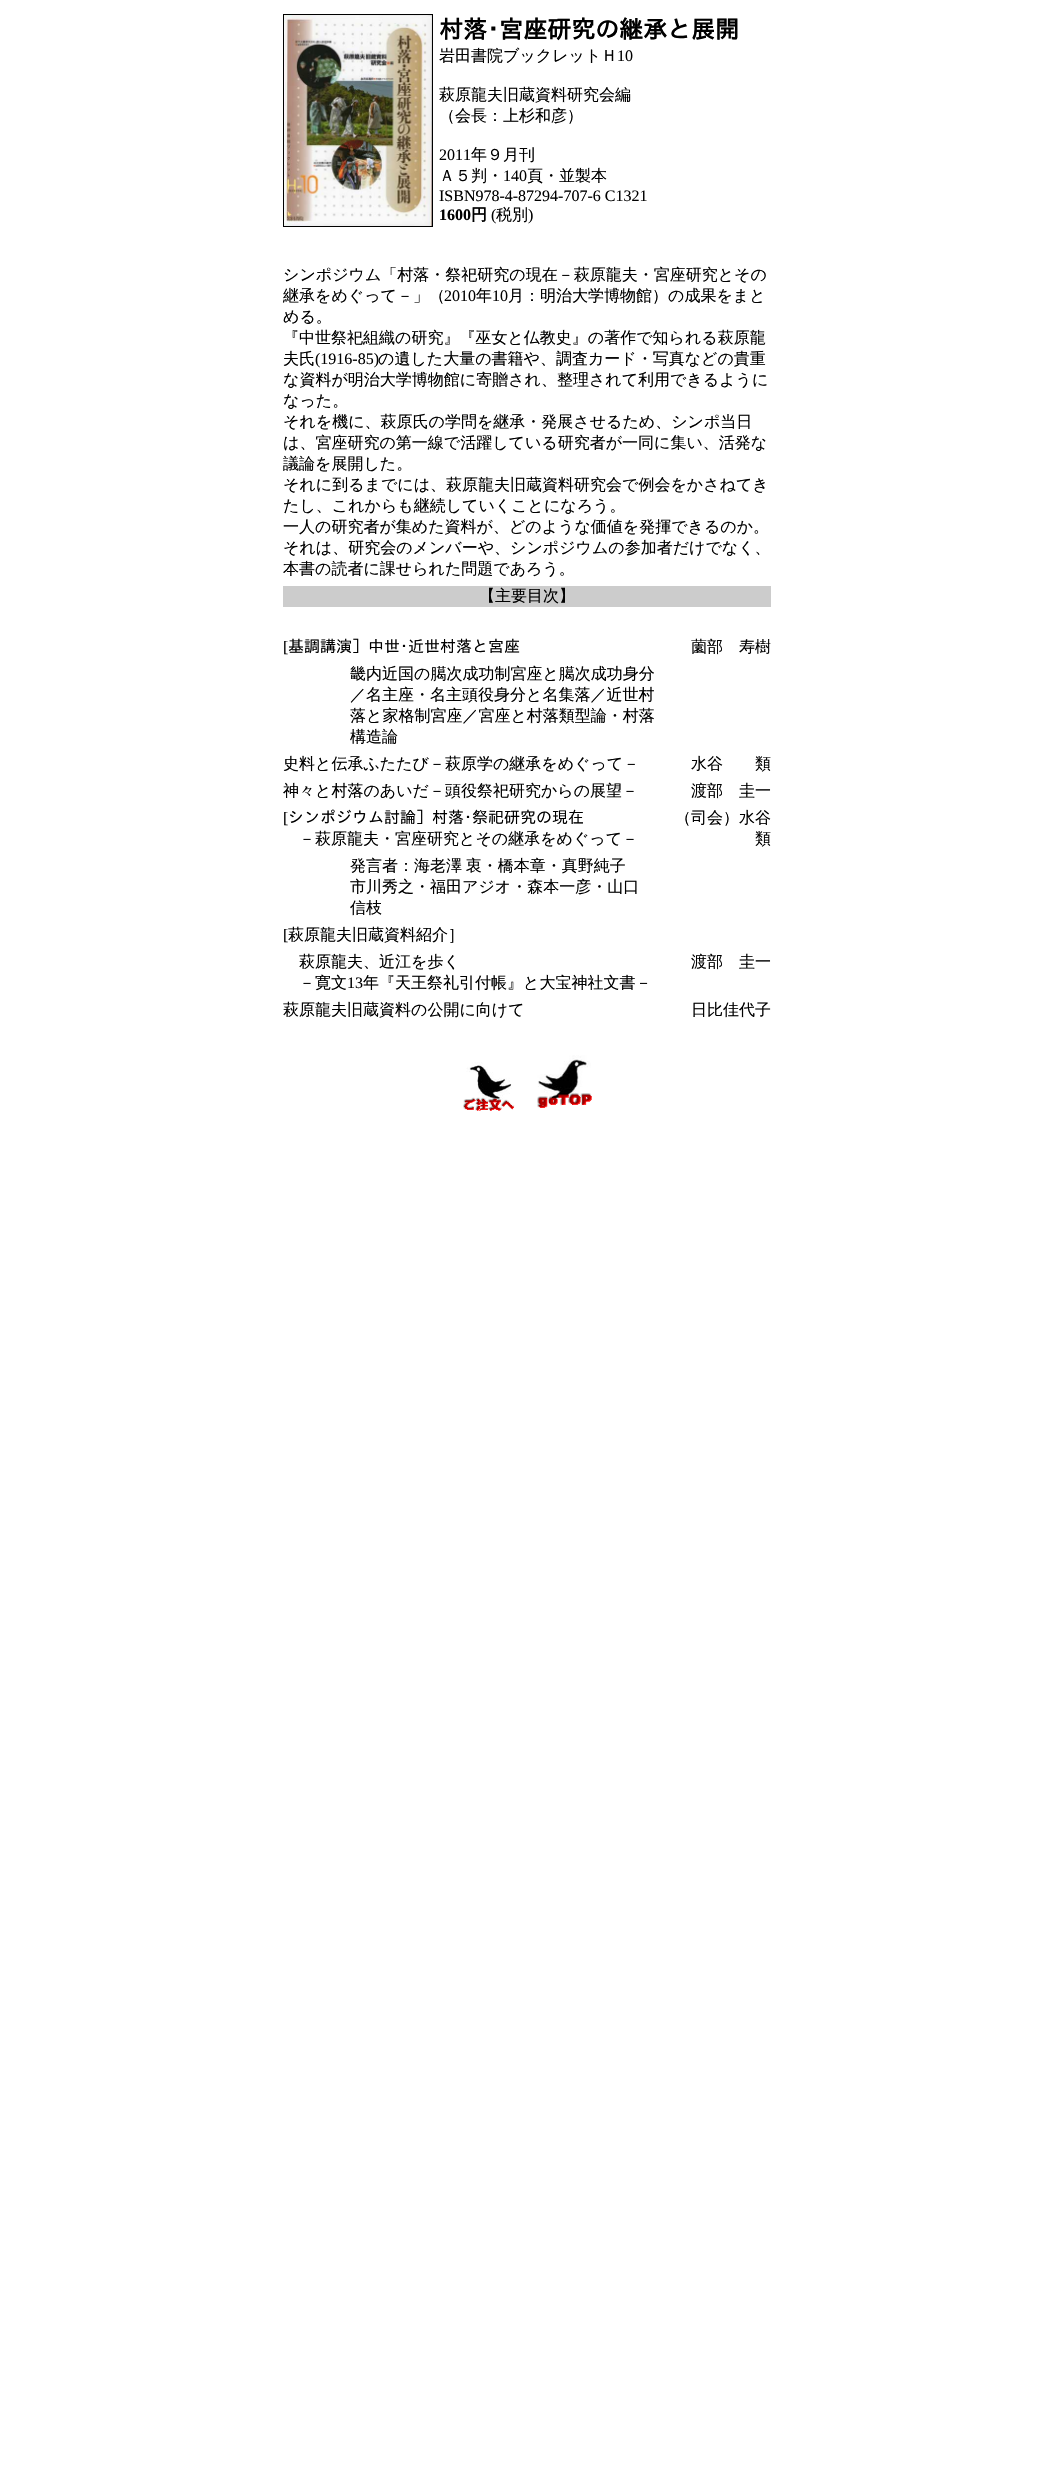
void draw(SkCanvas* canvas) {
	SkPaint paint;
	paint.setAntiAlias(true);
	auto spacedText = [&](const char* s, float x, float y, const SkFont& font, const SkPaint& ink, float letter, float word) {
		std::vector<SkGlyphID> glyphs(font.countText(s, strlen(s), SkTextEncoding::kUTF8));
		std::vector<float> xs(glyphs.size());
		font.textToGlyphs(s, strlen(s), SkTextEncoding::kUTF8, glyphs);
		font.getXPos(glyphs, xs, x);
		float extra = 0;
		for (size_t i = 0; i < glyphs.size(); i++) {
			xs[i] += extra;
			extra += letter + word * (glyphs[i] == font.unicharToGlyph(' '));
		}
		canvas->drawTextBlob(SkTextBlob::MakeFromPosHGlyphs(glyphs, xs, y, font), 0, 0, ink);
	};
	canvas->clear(0xffffffff);
	paint.setStroke(true);
	paint.setStrokeWidth(1);
	paint.setColor(0xff000000);
	canvas->drawRect(SkRect::MakeXYWH(283.5, 14.5, 149, 212), paint);
	canvas->drawImageRect(SkImages::DeferredFromEncodedData(SkData::MakeFromFileName("img1.png")), SkRect::MakeXYWH(284, 15, 148, 211), SkSamplingOptions());
	SkFont f1(fontMgr->matchFamilyStyle("IPAGothic", SkFontStyle::Bold()), 24);
	f1.setSubpixel(true);
	paint.setStroke(false);
	canvas->drawString("村落･宮座研究の継承と展開", 439, 38, f1, paint);
	SkFont f2(fontMgr->matchFamilyStyle("WenQuanYi Zen Hei", SkFontStyle(500, SkFontStyle::kNormal_Width, SkFontStyle::kUpright_Slant)), 16);
	f2.setSubpixel(true);
	canvas->drawString("岩田書院ブックレットＨ", 439, 61, f2, paint);
	SkFont f3(fontMgr->matchFamilyStyle("Liberation Serif", SkFontStyle::Normal()), 16);
	f3.setSubpixel(true);
	canvas->drawString("10", 617, 61, f3, paint);
	canvas->drawString("萩原龍夫旧蔵資料研究会編", 439, 100, f2, paint);
	canvas->drawString("（会長：上杉和彦）", 439, 121, f2, paint);
	canvas->drawString("2011", 439, 160, f3, paint);
	canvas->drawString("年９月刊", 471, 160, f2, paint);
	canvas->drawString("Ａ５判・", 439, 181, f2, paint);
	canvas->drawString("140", 503, 181, f3, paint);
	canvas->drawString("頁・並製本", 527, 181, f2, paint);
	canvas->drawString("ISBN978-4-87294-707-6 C1321", 439, 201, f3, paint);
	SkFont f4(fontMgr->matchFamilyStyle("Liberation Serif", SkFontStyle::Bold()), 16);
	f4.setSubpixel(true);
	canvas->drawString("1600", 439, 220, f4, paint);
	SkFont f5(fontMgr->matchFamilyStyle("WenQuanYi Zen Hei", SkFontStyle::Bold()), 16);
	f5.setSubpixel(true);
	canvas->drawString("円", 471, 220, f5, paint);
	canvas->drawString("(", 491, 220, f3, paint);
	canvas->drawString("税別", 496, 220, f2, paint);
	canvas->drawString(")", 528, 220, f3, paint);
	canvas->drawString("シンポジウム「村落・祭祀研究の現在－萩原龍夫・宮座研究とその", 283, 280, f2, paint);
	canvas->drawString("継承をめぐって－」（", 283, 301, f2, paint);
	canvas->drawString("2010", 444, 301, f3, paint);
	canvas->drawString("年", 476, 301, f2, paint);
	canvas->drawString("10", 492, 301, f3, paint);
	canvas->drawString("月：明治大学博物館）の成果をまと", 508, 301, f2, paint);
	canvas->drawString("める。", 283, 322, f2, paint);
	canvas->drawString("『中世祭祀組織の研究』『巫女と仏教史』の著作で知られる萩原龍", 283, 343, f2, paint);
	canvas->drawString("夫氏", 283, 364, f2, paint);
	canvas->drawString("(1916-85)", 315, 364, f3, paint);
	canvas->drawString("の遺した大量の書籍や、調査カード・写真などの貴重", 378, 364, f2, paint);
	canvas->drawString("な資料が明治大学博物館に寄贈され、整理されて利用できるように", 283, 385, f2, paint);
	canvas->drawString("なった。", 283, 406, f2, paint);
	canvas->drawString("それを機に、萩原氏の学問を継承・発展させるため、シンポ当日", 283, 427, f2, paint);
	canvas->drawString("は、宮座研究の第一線で活躍している研究者が一同に集い、活発な", 283, 448, f2, paint);
	canvas->drawString("議論を展開した。", 283, 469, f2, paint);
	canvas->drawString("それに到るまでには、萩原龍夫旧蔵資料研究会で例会をかさねてき", 283, 490, f2, paint);
	canvas->drawString("たし、これからも継続していくことになろう。", 283, 511, f2, paint);
	canvas->drawString("一人の研究者が集めた資料が、どのような価値を発揮できるのか。", 283, 532, f2, paint);
	canvas->drawString("それは、研究会のメンバーや、シンポジウムの参加者だけでなく、", 283, 553, f2, paint);
	canvas->drawString("本書の読者に課せられた問題であろう。", 283, 574, f2, paint);
	paint.setColor(0xffcccccc);
	canvas->drawRect(SkRect::MakeXYWH(283, 586, 488, 21), paint);
	paint.setColor(0xff000000);
	canvas->drawString("【主要目次】", 479, 601, f2, paint);
	canvas->drawString("[", 283, 652, f3, paint);
	SkFont f6(fontMgr->matchFamilyStyle("IPAGothic", SkFontStyle::Normal()), 16);
	f6.setSubpixel(true);
	canvas->drawString("基調講演］中世･近世村落と宮座", 288, 652, f6, paint);
	canvas->drawString("薗部　寿樹", 691, 652, f2, paint);
	canvas->drawString("畿内近国の臈次成功制宮座と臈次成功身分", 350, 679, f2, paint);
	canvas->drawString("／名主座・名主頭役身分と名集落／近世村", 350, 700, f2, paint);
	canvas->drawString("落と家格制宮座／宮座と村落類型論・村落", 350, 721, f2, paint);
	canvas->drawString("構造論", 350, 742, f2, paint);
	canvas->drawString("史料と伝承ふたたび－萩原学の継承をめぐって－", 283, 769, f2, paint);
	canvas->drawString("水谷　　類", 691, 769, f2, paint);
	canvas->drawString("神々と村落のあいだ－頭役祭祀研究からの展望－", 283, 796, f2, paint);
	canvas->drawString("渡部　圭一", 691, 796, f2, paint);
	canvas->drawString("[", 283, 823, f3, paint);
	canvas->drawString("シンポジウム討論］村落･祭祀研究の現在", 288, 823, f6, paint);
	canvas->drawString("－萩原龍夫・宮座研究とその継承をめぐって－", 299, 844, f2, paint);
	canvas->drawString("（司会）水谷", 675, 823, f2, paint);
	canvas->drawString("類", 755, 844, f2, paint);
	spacedText("発言者：海老澤 衷・橋本章・真野純子", 350, 871, f2, paint, 0, -1);
	canvas->drawString("市川秀之・福田アジオ・森本一彦・山口", 350, 892, f2, paint);
	canvas->drawString("信枝", 350, 913, f2, paint);
	canvas->drawString("[", 283, 940, f3, paint);
	canvas->drawString("萩原龍夫旧蔵資料紹介］", 288, 940, f2, paint);
	canvas->drawString("萩原龍夫、近江を歩く", 299, 967, f2, paint);
	canvas->drawString("－寛文", 299, 988, f2, paint);
	canvas->drawString("13", 347, 988, f3, paint);
	canvas->drawString("年『天王祭礼引付帳』と大宝神社文書－", 363, 988, f2, paint);
	canvas->drawString("渡部　圭一", 691, 967, f2, paint);
	canvas->drawString("萩原龍夫旧蔵資料の公開に向けて", 283, 1015, f2, paint);
	canvas->drawString("日比佳代子", 691, 1015, f2, paint);
	canvas->drawImageRect(SkImages::DeferredFromEncodedData(SkData::MakeFromFileName("img2.png")), SkRect::MakeXYWH(463, 1062, 52, 49), SkSamplingOptions());
	canvas->drawImageRect(SkImages::DeferredFromEncodedData(SkData::MakeFromFileName("img3.png")), SkRect::MakeXYWH(537, 1055, 55, 53), SkSamplingOptions());
}
